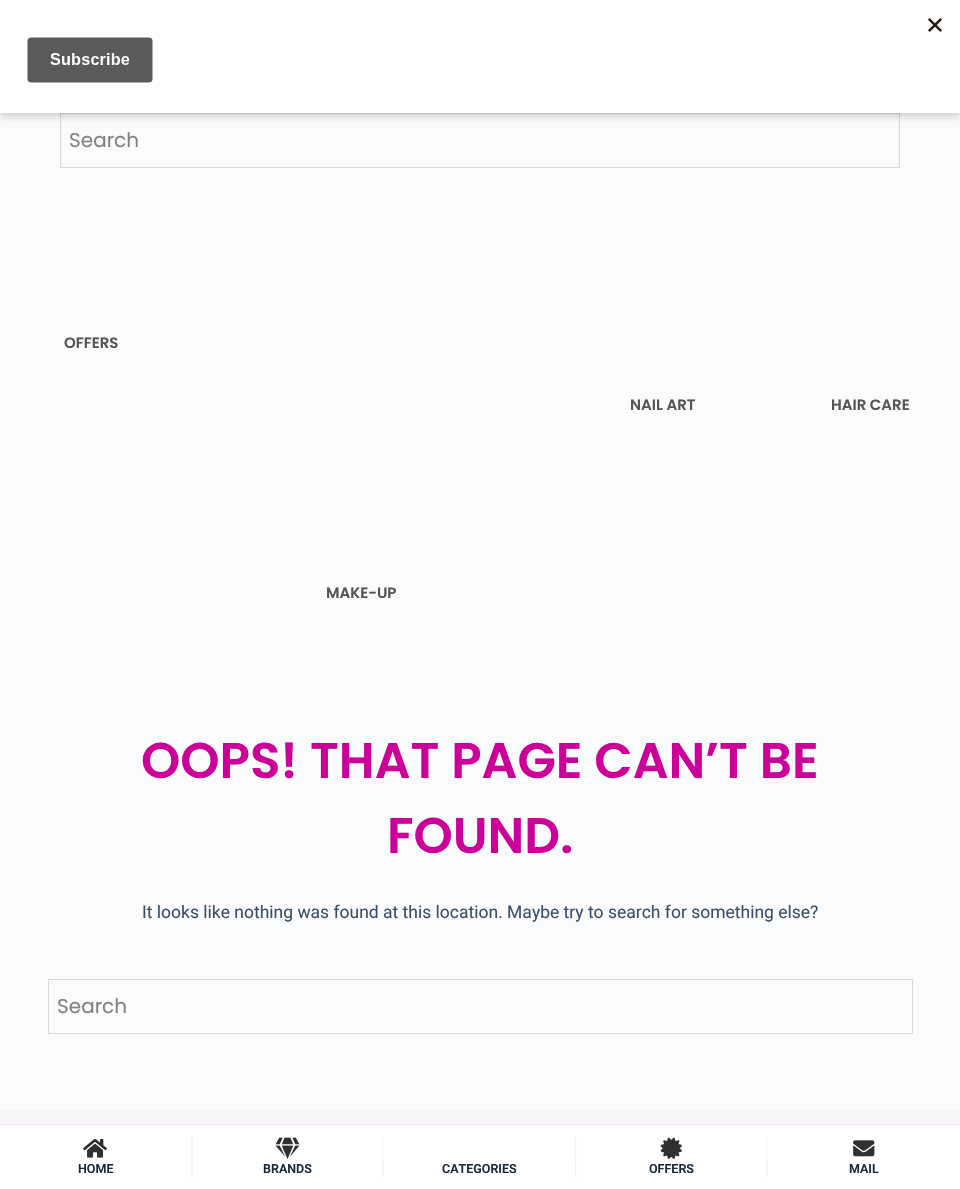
void draw(SkCanvas* canvas) {
	SkPaint paint;
	paint.setAntiAlias(true);
	auto svgPath = [&](const char* data, bool evenOdd = false) {
		SkPath result = *SkParsePath::FromSVGString(data);
		if (evenOdd) result.setFillType(SkPathFillType::kEvenOdd);
		return result;
	};
	canvas->clear(0xfffafbfc);
	paint.setStroke(true);
	paint.setStrokeWidth(1);
	paint.setColor(0xffd8d8d8);
	canvas->drawRect(SkRect::MakeXYWH(60.5, 113.5, 839, 54), paint);
	paint.setStroke(false);
	paint.setColor(0x33000000);
	paint.setMaskFilter(SkMaskFilter::MakeBlur(kNormal_SkBlurStyle, 4));
	canvas->drawRect(SkRect::MakeXYWH(0, 4, 960, 112), paint);
	paint.setMaskFilter(nullptr);
	paint.setColor(0xffffffff);
	canvas->drawRect(SkRect::MakeXYWH(0, 0, 960, 113), paint);
	canvas->drawImageRect(SkImages::DeferredFromEncodedData(SkData::MakeFromFileName("img1.png")), SkRect::MakeXYWH(27, 18, 915, 65), SkSamplingOptions());
	SkFont f1(fontMgr->matchFamilyStyle("Poppins", SkFontStyle::Normal()), 20);
	f1.setSubpixel(true);
	paint.setColor(0xff818282);
	canvas->drawString("Search", 69, 147, f1, paint);
	SkFont f2(fontMgr->matchFamilyStyle("Poppins", SkFontStyle(600, SkFontStyle::kNormal_Width, SkFontStyle::kUpright_Slant)), 15);
	f2.setSubpixel(true);
	paint.setColor(0xff555555);
	canvas->drawString("OFFERS", 64, 348, f2, paint);
	canvas->drawString("NAIL ART", 630, 410, f2, paint);
	canvas->drawString("HAIR CARE", 831, 410, f2, paint);
	canvas->drawString("MAKE-UP", 326, 598, f2, paint);
	SkFont f3(fontMgr->matchFamilyStyle("Poppins", SkFontStyle(600, SkFontStyle::kNormal_Width, SkFontStyle::kUpright_Slant)), 50);
	f3.setSubpixel(true);
	paint.setColor(0xffcc0099);
	canvas->drawString("OOPS! THAT PAGE CAN’T BE", 141, 778, f3, paint);
	canvas->drawString("FOUND.", 387, 853, f3, paint);
	SkFont f4(fontMgr->matchFamilyStyle("Roboto", SkFontStyle::Normal()), 17.5);
	f4.setSubpixel(true);
	paint.setColor(0xff3a4f66);
	canvas->drawString("It looks like nothing was found at this location. Maybe try to search for something else?", 142, 918, f4, paint);
	paint.setStroke(true);
	paint.setColor(0xffd8d8d8);
	canvas->drawRect(SkRect::MakeXYWH(48.5, 979.5, 864, 54), paint);
	paint.setStroke(false);
	paint.setColor(0xff818282);
	canvas->drawString("Search", 57, 1013, f1, paint);
	paint.setColor(0xfff5f6f7);
	canvas->drawRect(SkRect::MakeXYWH(0, 1110, 960, 14), paint);
	paint.setColor(0xffffffff);
	canvas->drawRect(SkRect::MakeXYWH(0, 1125, 960, 64), paint);
	paint.setColor(0xffffd4f4);
	canvas->drawRect(SkRect::MakeXYWH(0, 1124, 960, 1), paint);
	paint.setStroke(true);
	paint.setStrokeWidth(1.2);
	paint.setPathEffect(SkDashPathEffect::Make({{1.25f, 1.25f}}, 0));
	canvas->drawPath(svgPath("M192 1137.5V1177.5"), paint);
	paint.setPathEffect(nullptr);
	canvas->drawImageRect(SkImages::DeferredFromEncodedData(SkData::MakeFromFileName("img2.png")), SkRect::MakeXYWH(83, 1139, 24, 19), SkSamplingOptions());
	SkFont f5(fontMgr->matchFamilyStyle("Roboto", SkFontStyle(600, SkFontStyle::kNormal_Width, SkFontStyle::kUpright_Slant)), 12.5);
	f5.setSubpixel(true);
	paint.setStroke(false);
	paint.setColor(0xff192a3d);
	canvas->drawString("HOME", 78, 1173, f5, paint);
	paint.setStroke(true);
	paint.setColor(0xffffd4f4);
	paint.setPathEffect(SkDashPathEffect::Make({{1.25f, 1.25f}}, 0));
	canvas->drawPath(svgPath("M383 1137.5V1177.5"), paint);
	paint.setPathEffect(nullptr);
	canvas->drawImageRect(SkImages::DeferredFromEncodedData(SkData::MakeFromFileName("img3.png")), SkRect::MakeXYWH(275, 1137, 25, 22), SkSamplingOptions());
	paint.setStroke(false);
	paint.setColor(0xff192a3d);
	canvas->drawString("BRANDS", 263, 1173, f5, paint);
	paint.setStroke(true);
	paint.setColor(0xffffd4f4);
	paint.setPathEffect(SkDashPathEffect::Make({{1.25f, 1.25f}}, 0));
	canvas->drawPath(svgPath("M575.5 1137.5V1177.5"), paint);
	paint.setPathEffect(nullptr);
	paint.setStroke(false);
	paint.setColor(0xff192a3d);
	canvas->drawString("CATEGORIES", 442, 1173, f5, paint);
	paint.setStroke(true);
	paint.setColor(0xffffd4f4);
	paint.setPathEffect(SkDashPathEffect::Make({{1.25f, 1.25f}}, 0));
	canvas->drawPath(svgPath("M767 1137.5V1177.5"), paint);
	paint.setPathEffect(nullptr);
	canvas->drawImageRect(SkImages::DeferredFromEncodedData(SkData::MakeFromFileName("img4.png")), SkRect::MakeXYWH(660, 1137, 22, 22), SkSamplingOptions());
	paint.setStroke(false);
	paint.setColor(0xff192a3d);
	canvas->drawString("OFFERS", 649, 1173, f5, paint);
	canvas->drawImageRect(SkImages::DeferredFromEncodedData(SkData::MakeFromFileName("img5.png")), SkRect::MakeXYWH(853, 1140, 22, 17), SkSamplingOptions());
	canvas->drawString("MAIL", 849, 1173, f5, paint);
}
